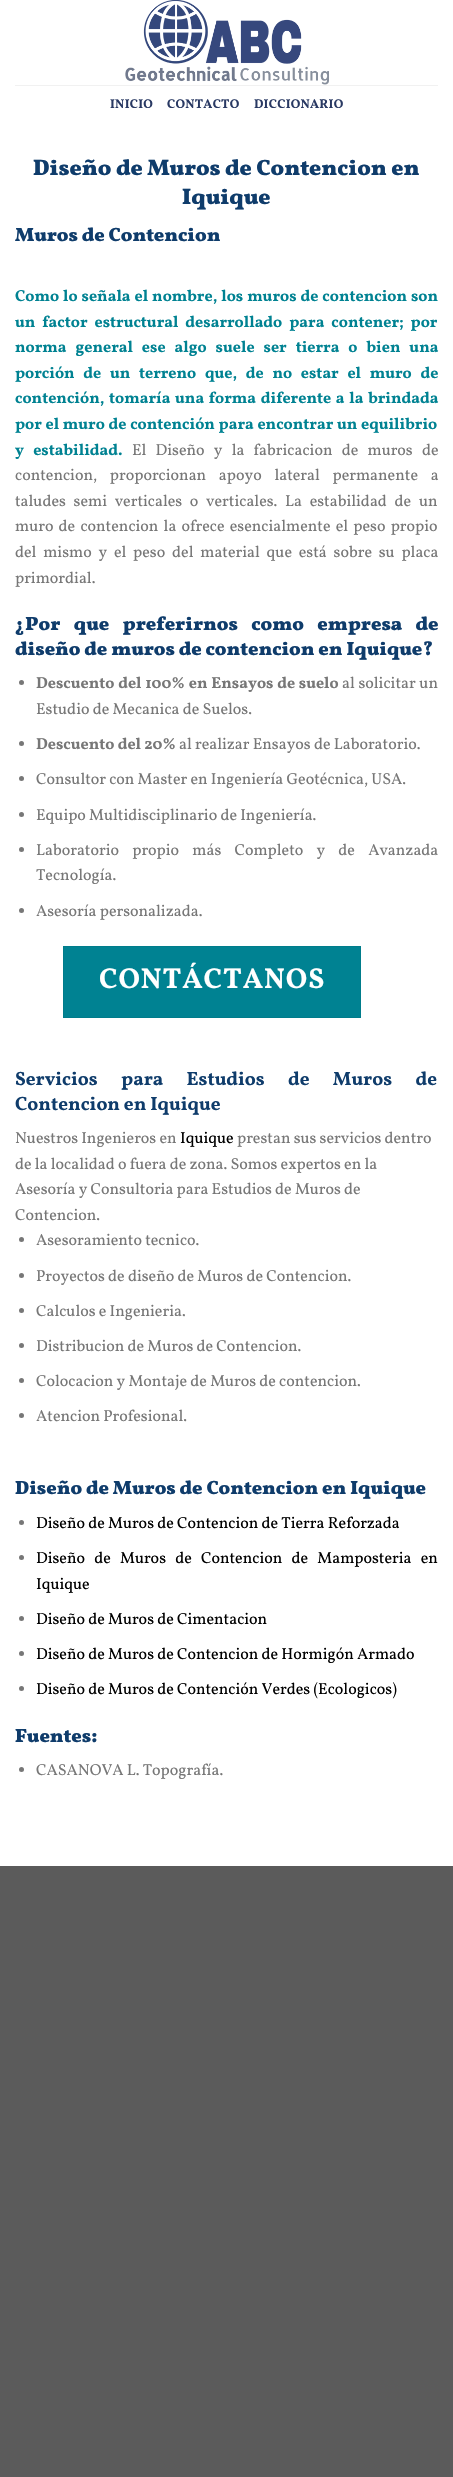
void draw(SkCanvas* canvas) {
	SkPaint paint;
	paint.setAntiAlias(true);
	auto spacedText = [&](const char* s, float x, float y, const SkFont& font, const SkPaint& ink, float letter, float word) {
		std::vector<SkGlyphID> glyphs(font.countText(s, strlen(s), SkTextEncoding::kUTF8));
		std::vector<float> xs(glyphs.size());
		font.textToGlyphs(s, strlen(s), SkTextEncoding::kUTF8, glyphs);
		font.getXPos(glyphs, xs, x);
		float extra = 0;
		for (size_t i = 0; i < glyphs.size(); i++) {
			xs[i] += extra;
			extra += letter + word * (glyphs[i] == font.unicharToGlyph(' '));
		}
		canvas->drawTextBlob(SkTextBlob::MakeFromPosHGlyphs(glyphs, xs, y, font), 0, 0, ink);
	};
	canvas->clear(0xff5b5b5b);
	paint.setColor(0xffffffff);
	canvas->drawRect(SkRect::MakeXYWH(0, 0, 453, 1866), paint);
	canvas->drawImageRect(SkImages::DeferredFromEncodedData(SkData::MakeFromFileName("img1.png")), SkRect::MakeXYWH(125, 0, 204, 85), SkSamplingOptions());
	paint.setColor(0xfff1f1f1);
	canvas->drawRect(SkRect::MakeXYWH(15, 85, 423, 1), paint);
	SkFont f1(fontMgr->matchFamilyStyle("Vollkorn", SkFontStyle::Bold()), 12.75);
	f1.setSubpixel(true);
	paint.setColor(0xff293963);
	spacedText("INICIO", 110, 108, f1, paint, 0.25, 0);
	spacedText("CONTACTO", 167, 108, f1, paint, 0.25, 0);
	spacedText("DICCIONARIO", 254, 108, f1, paint, 0.25, 0);
	SkFont f2(fontMgr->matchFamilyStyle("Vollkorn", SkFontStyle(900, SkFontStyle::kNormal_Width, SkFontStyle::kUpright_Slant)), 22.4);
	f2.setSubpixel(true);
	paint.setColor(0xff0f3c6b);
	canvas->drawString("Diseño de Muros de Contencion en", 33, 175, f2, paint);
	canvas->drawString("Iquique", 182, 204, f2, paint);
	SkFont f3(fontMgr->matchFamilyStyle("Vollkorn", SkFontStyle(900, SkFontStyle::kNormal_Width, SkFontStyle::kUpright_Slant)), 19.2);
	f3.setSubpixel(true);
	canvas->drawString("Muros de Contencion", 15, 241, f3, paint);
	SkFont f4(fontMgr->matchFamilyStyle("Vollkorn", SkFontStyle::Bold()), 16);
	f4.setSubpixel(true);
	paint.setColor(0xff008292);
	spacedText("Como lo señala el nombre, los muros de contencion son", 15, 301, f4, paint, 0, 0.75);
	spacedText("un factor estructural desarrollado para contener; por", 15, 327, f4, paint, 0, 3.75);
	spacedText("norma general ese algo suele ser tierra o bien una", 15, 352, f4, paint, 0, 5.75);
	spacedText("porción de un terreno que, de no estar el muro de", 15, 378, f4, paint, 0, 5.5);
	spacedText("contención, tomaría una forma diferente a la brindada", 15, 403, f4, paint, 0, 1.5);
	spacedText("por el muro de contención para encontrar un equilibrio", 15, 429, f4, paint, 0, 0.5);
	spacedText("y estabilidad.", 15, 455, f4, paint, 0, 6);
	SkFont f5(fontMgr->matchFamilyStyle("Vollkorn", SkFontStyle::Normal()), 16);
	f5.setSubpixel(true);
	paint.setColor(0xff777777);
	spacedText("El Diseño y la fabricacion de muros de", 132, 455, f5, paint, 0, 6);
	spacedText("contencion, proporcionan apoyo lateral permanente a", 15, 480, f5, paint, 0, 9.5);
	spacedText("taludes semi verticales o verticales. La estabilidad de un", 15, 506, f5, paint, 0, 4.5);
	spacedText("muro de contencion la ofrece esencialmente el peso propio", 15, 531, f5, paint, 0, 2);
	spacedText("del mismo y el peso del material que está sobre su placa", 15, 557, f5, paint, 0, 3.6);
	canvas->drawString("primordial.", 15, 583, f5, paint);
	paint.setColor(0xff0f3c6b);
	spacedText("¿Por que preferirnos como empresa de", 15, 630, f3, paint, 0, 9.5);
	canvas->drawString("diseño de muros de contencion en Iquique?", 15, 655, f3, paint);
	paint.setColor(0xff777777);
	canvas->drawCircle(21.5, 682.5, 2.5, paint);
	spacedText("Descuento del 100% en Ensayos de suelo", 36, 688, f4, paint, 0, 0.5);
	spacedText("al solicitar un", 342, 688, f5, paint, 0, 0.5);
	canvas->drawString("Estudio de Mecanica de Suelos.", 36, 714, f5, paint);
	canvas->drawCircle(21.5, 743.5, 2.5, paint);
	canvas->drawString("Descuento del 20%", 36, 749, f4, paint);
	canvas->drawString("al realizar Ensayos de Laboratorio.", 179, 749, f5, paint);
	canvas->drawCircle(21.5, 778.5, 2.5, paint);
	canvas->drawString("Consultor con Master en Ingeniería Geotécnica, USA.", 36, 784, f5, paint);
	canvas->drawCircle(21.5, 814.5, 2.5, paint);
	canvas->drawString("Equipo Multidisciplinario de Ingeniería.", 36, 820, f5, paint);
	canvas->drawCircle(21.5, 849.5, 2.5, paint);
	spacedText("Laboratorio propio más Completo y de Avanzada", 36, 855, f5, paint, 0, 10);
	canvas->drawString("Tecnología.", 36, 880, f5, paint);
	canvas->drawCircle(21.5, 910.5, 2.5, paint);
	canvas->drawString("Asesoría personalizada.", 36, 916, f5, paint);
	paint.setColor(0xff008292);
	canvas->drawRect(SkRect::MakeXYWH(63.5, 946.5, 297, 71), paint);
	paint.setStroke(true);
	paint.setStrokeWidth(1);
	paint.setColor(0xff007c8b);
	canvas->drawRect(SkRect::MakeXYWH(63.5, 946.5, 297, 71), paint);
	SkFont f6(fontMgr->matchFamilyStyle("Vollkorn", SkFontStyle::Bold()), 28.75);
	f6.setSubpixel(true);
	paint.setStroke(false);
	paint.setColor(0xffffffff);
	spacedText("CONTÁCTANOS", 99, 988, f6, paint, 0.9, 0);
	SkFont f7(fontMgr->matchFamilyStyle("Vollkorn", SkFontStyle::Bold()), 19.2);
	f7.setSubpixel(true);
	paint.setColor(0xff0f3c6b);
	spacedText("Servicios para Estudios de Muros de", 15, 1085, f7, paint, 0, 19.5);
	canvas->drawString("Contencion en Iquique", 15, 1110, f7, paint);
	paint.setColor(0xff777777);
	canvas->drawString("Nuestros Ingenieros en", 15, 1143, f5, paint);
	paint.setColor(0xff000000);
	canvas->drawString("Iquique", 180, 1143, f5, paint);
	paint.setColor(0xff777777);
	canvas->drawString("prestan sus servicios dentro", 237, 1143, f5, paint);
	canvas->drawString("de la localidad o fuera de zona. Somos expertos en la", 15, 1169, f5, paint);
	canvas->drawString("Asesoría y Consultoria para Estudios de Muros de", 15, 1194, f5, paint);
	canvas->drawString("Contencion.", 15, 1220, f5, paint);
	canvas->drawCircle(21.5, 1239.5, 2.5, paint);
	canvas->drawString("Asesoramiento tecnico.", 36, 1245, f5, paint);
	canvas->drawCircle(21.5, 1275.5, 2.5, paint);
	canvas->drawString("Proyectos de diseño de Muros de Contencion.", 36, 1281, f5, paint);
	canvas->drawCircle(21.5, 1310.5, 2.5, paint);
	canvas->drawString("Calculos e Ingenieria.", 36, 1316, f5, paint);
	canvas->drawCircle(21.5, 1345.5, 2.5, paint);
	canvas->drawString("Distribucion de Muros de Contencion.", 36, 1351, f5, paint);
	canvas->drawCircle(21.5, 1380.5, 2.5, paint);
	canvas->drawString("Colocacion y Montaje de Muros de contencion.", 36, 1386, f5, paint);
	canvas->drawCircle(21.5, 1415.5, 2.5, paint);
	canvas->drawString("Atencion Profesional.", 36, 1421, f5, paint);
	paint.setColor(0xff0f3c6b);
	canvas->drawString("Diseño de Muros de Contencion en Iquique", 15, 1494, f3, paint);
	paint.setColor(0xff777777);
	canvas->drawCircle(21.5, 1522.5, 2.5, paint);
	paint.setColor(0xff000000);
	canvas->drawString("Diseño de Muros de Contencion de Tierra Reforzada", 36, 1528, f5, paint);
	paint.setColor(0xff777777);
	canvas->drawCircle(21.5, 1557.5, 2.5, paint);
	paint.setColor(0xff000000);
	spacedText("Diseño de Muros de Contencion de Mamposteria en", 36, 1563, f5, paint, 0, 6);
	canvas->drawString("Iquique", 36, 1589, f5, paint);
	paint.setColor(0xff777777);
	canvas->drawCircle(21.5, 1618.5, 2.5, paint);
	paint.setColor(0xff000000);
	canvas->drawString("Diseño de Muros de Cimentacion", 36, 1624, f5, paint);
	paint.setColor(0xff777777);
	canvas->drawCircle(21.5, 1653.5, 2.5, paint);
	paint.setColor(0xff000000);
	canvas->drawString("Diseño de Muros de Contencion de Hormigón Armado", 36, 1659, f5, paint);
	paint.setColor(0xff777777);
	canvas->drawCircle(21.5, 1688.5, 2.5, paint);
	paint.setColor(0xff000000);
	canvas->drawString("Diseño de Muros de Contención Verdes (Ecologicos)", 36, 1694, f5, paint);
	paint.setColor(0xff0f3c6b);
	canvas->drawString("Fuentes:", 15, 1742, f3, paint);
	paint.setColor(0xff777777);
	canvas->drawCircle(21.5, 1769.5, 2.5, paint);
	canvas->drawString("CASANOVA L. Topografía.", 36, 1775, f5, paint);
}
